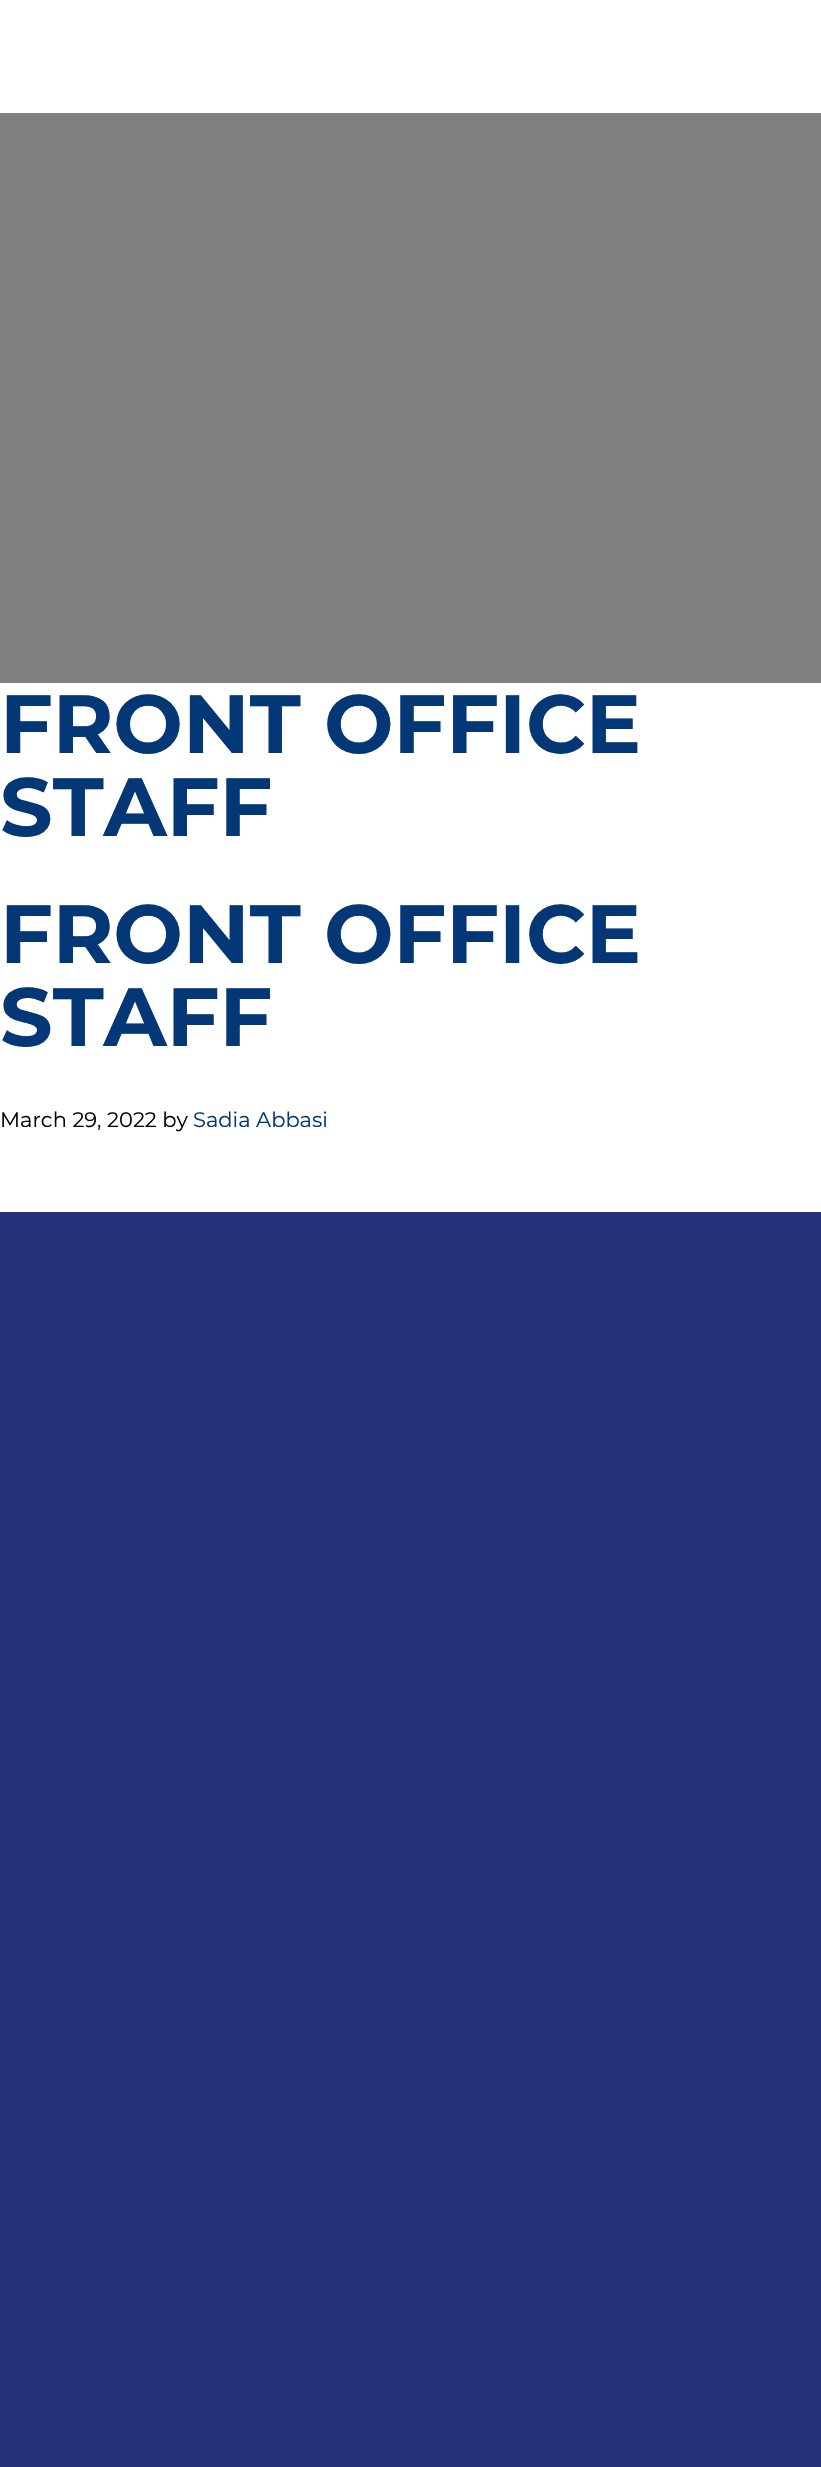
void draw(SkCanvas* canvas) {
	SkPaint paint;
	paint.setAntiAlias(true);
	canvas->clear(0xffffffff);
	paint.setColor(0xff808080);
	canvas->drawRect(SkRect::MakeXYWH(0, 113, 821, 570), paint);
	SkFont f1(fontMgr->matchFamilyStyle("Montserrat", SkFontStyle::Bold()), 82.5);
	f1.setSubpixel(true);
	paint.setColor(0xff033775);
	canvas->drawString("FRONT OFFICE", 0, 753, f1, paint);
	canvas->drawString("STAFF", 0, 836, f1, paint);
	canvas->drawString("FRONT OFFICE", 0, 963, f1, paint);
	canvas->drawString("STAFF", 0, 1046, f1, paint);
	SkFont f2(fontMgr->matchFamilyStyle("Montserrat", SkFontStyle::Normal()), 21);
	f2.setSubpixel(true);
	paint.setColor(0xff000000);
	canvas->drawString("March 29, 2022 by", 0, 1127, f2, paint);
	paint.setColor(0xff033775);
	canvas->drawString("Sadia Abbasi", 193, 1127, f2, paint);
	paint.setColor(0xff25337a);
	canvas->drawRect(SkRect::MakeXYWH(0, 1212, 821, 1255), paint);
}
